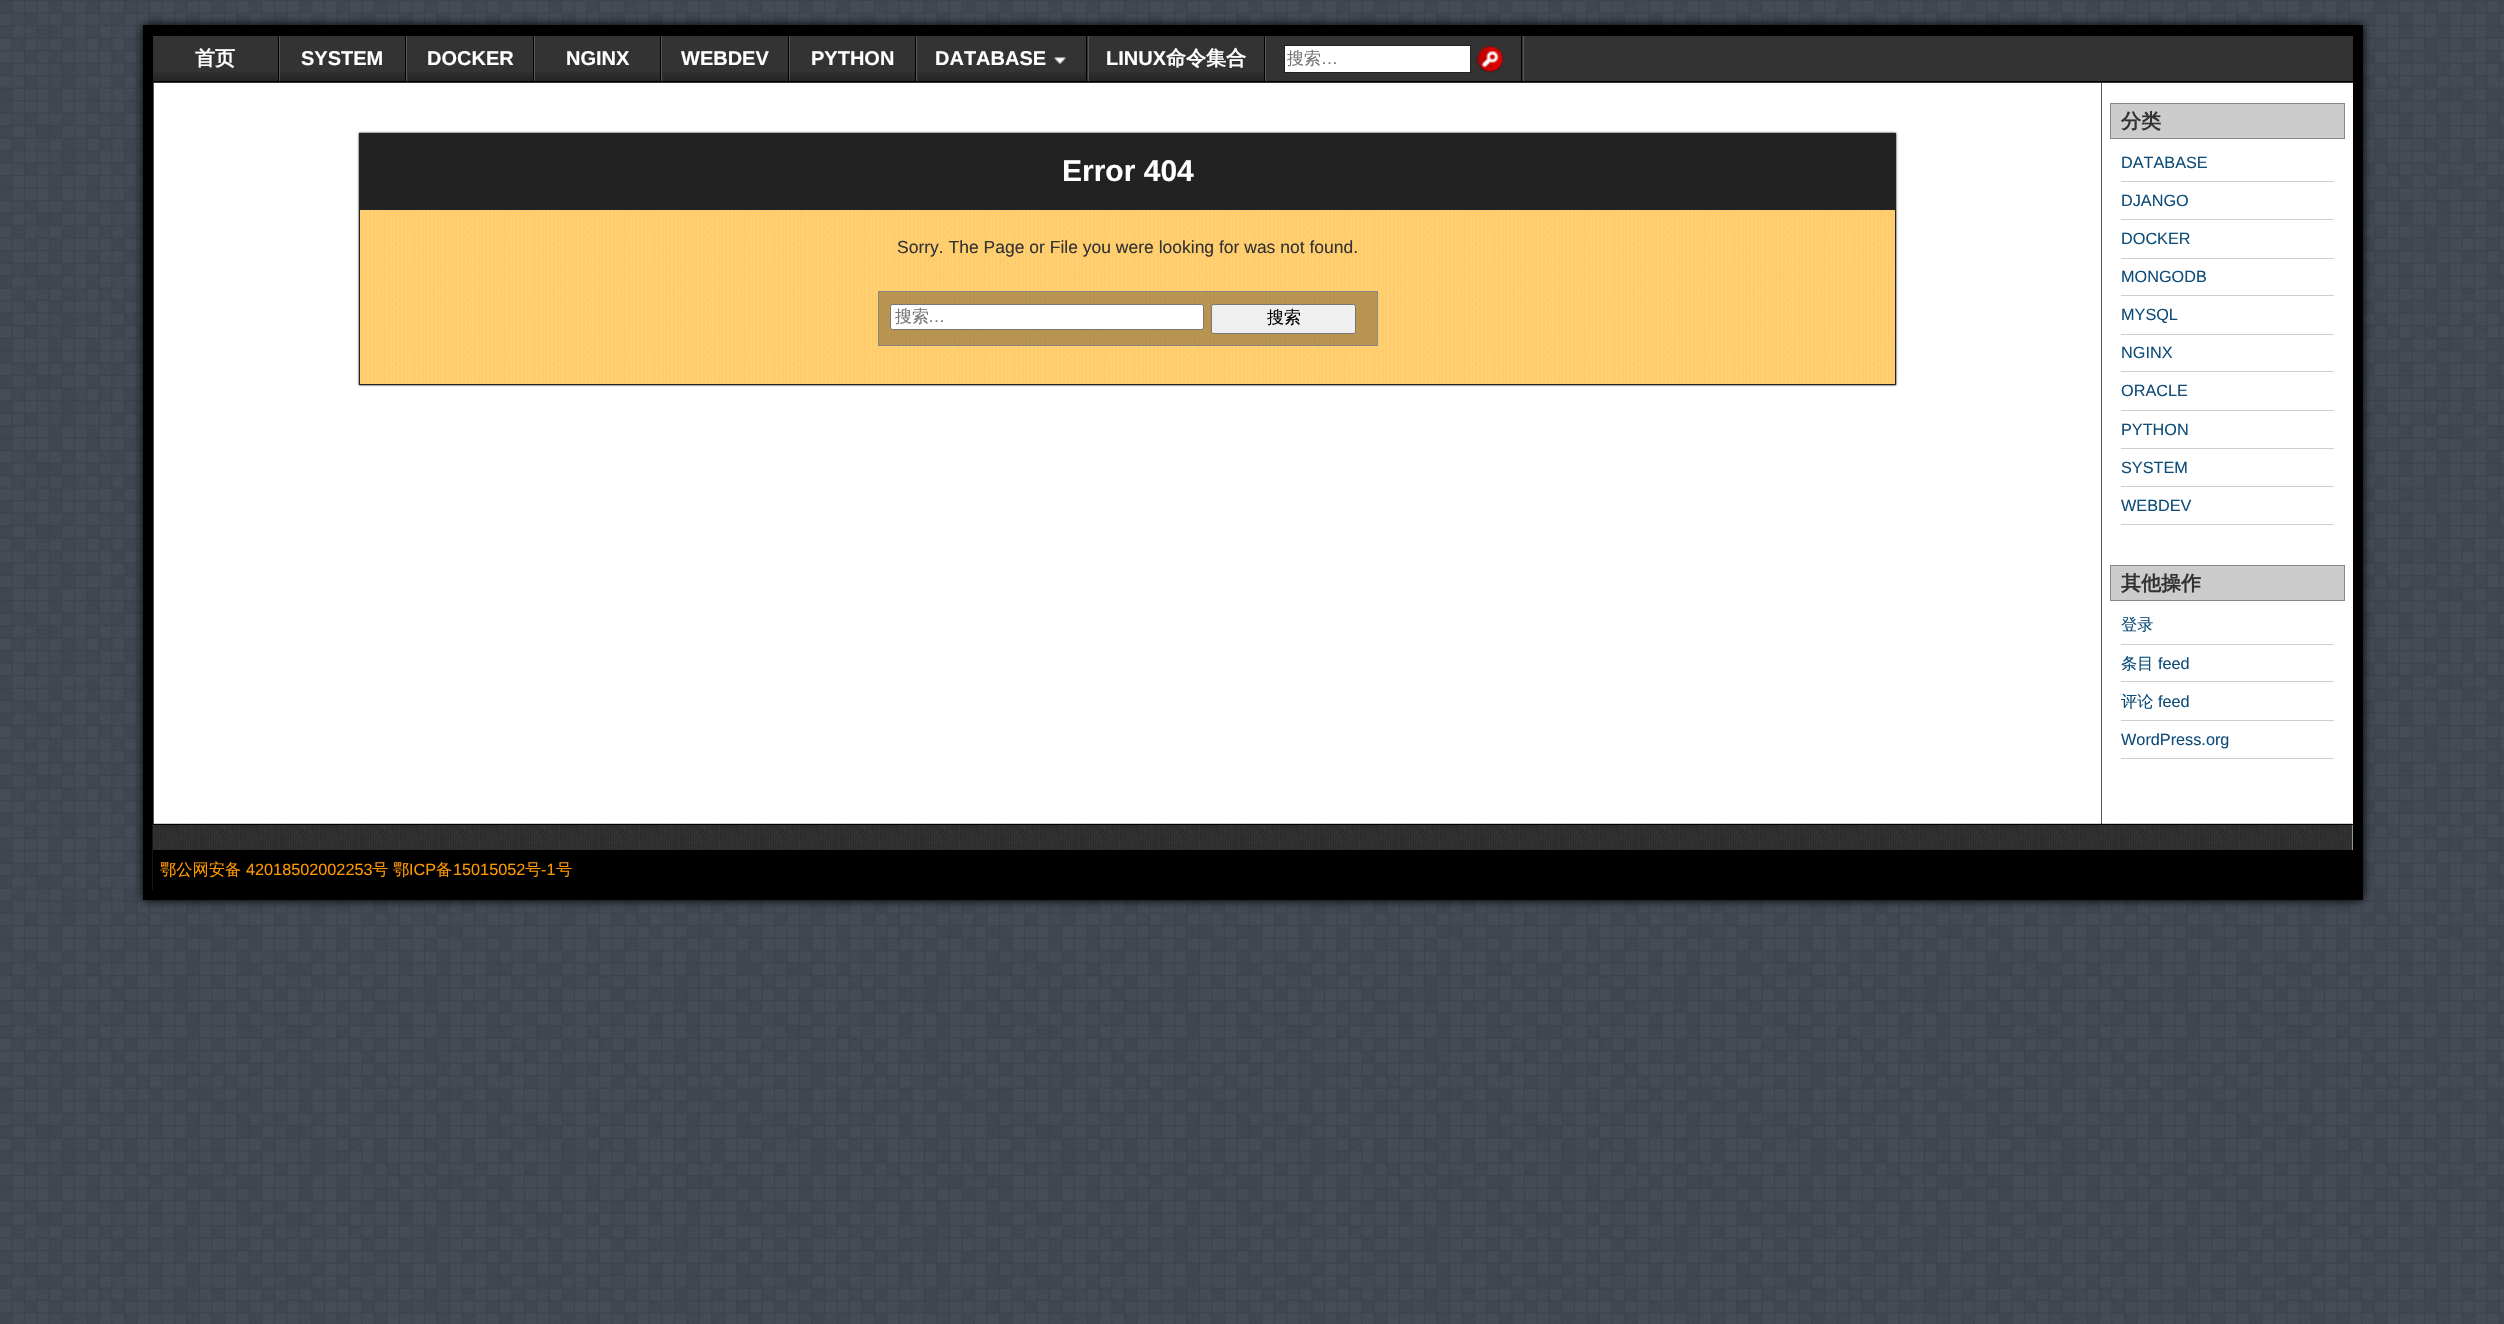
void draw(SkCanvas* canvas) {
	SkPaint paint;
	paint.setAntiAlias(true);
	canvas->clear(0xffffffff);
	canvas->drawImageRect(SkImages::DeferredFromEncodedData(SkData::MakeFromFileName("img1.png")), SkRect::MakeXYWH(0, 0, 2504, 1324), SkSamplingOptions());
	paint.setColor(0xff000000);
	paint.setMaskFilter(SkMaskFilter::MakeBlur(kNormal_SkBlurStyle, 5));
	canvas->drawRect(SkRect::MakeXYWH(143, 25, 2220, 875), paint);
	paint.setMaskFilter(nullptr);
	paint.setColor(0xffffffff);
	canvas->drawRect(SkRect::MakeXYWH(154, 83, 2199, 767), paint);
	paint.setStroke(true);
	paint.setStrokeWidth(10);
	paint.setColor(0xff000000);
	canvas->drawRect(SkRect::MakeXYWH(148, 30, 2210, 865), paint);
	paint.setStroke(false);
	paint.setColor(0xff333333);
	canvas->drawRect(SkRect::MakeXYWH(153, 36, 2200, 47), paint);
	paint.setColor(0xff000000);
	canvas->drawRect(SkRect::MakeXYWH(153, 35, 2200, 1), paint);
	canvas->drawRect(SkRect::MakeXYWH(153, 81, 2200, 1), paint);
	paint.setColor(0xff555555);
	canvas->drawRect(SkRect::MakeXYWH(1523, 36, 1, 45), paint);
	paint.setColor(0xff000000);
	canvas->drawRect(SkRect::MakeXYWH(278, 36, 1, 45), paint);
	{
		const SkColor colors[] = {0xff333333, 0xff252525};
		const float stops[] = {0.75, 1};
		const SkPoint ends[] = {{215, 36}, {215, 81}};
		paint.setShader(SkGradientShader::MakeLinear(ends, colors, stops, 2, SkTileMode::kClamp));
		paint.setAlpha(255);
	}
	canvas->drawRect(SkRect::MakeXYWH(153, 72, 125, 9), paint);
	SkFont f1(fontMgr->matchFamilyStyle("WenQuanYi Zen Hei", SkFontStyle::Bold()), 20);
	f1.setSubpixel(true);
	paint.setShader(nullptr);
	paint.setColor(0xffffffff);
	canvas->drawString("首页", 195, 65, f1, paint);
	paint.setColor(0xff000000);
	canvas->drawRect(SkRect::MakeXYWH(405, 36, 1, 45), paint);
	paint.setColor(0xff555555);
	canvas->drawRect(SkRect::MakeXYWH(279, 36, 1, 45), paint);
	{
		const SkColor colors[] = {0xff333333, 0xff252525};
		const float stops[] = {0.75, 1};
		const SkPoint ends[] = {{343, 36}, {343, 81}};
		paint.setShader(SkGradientShader::MakeLinear(ends, colors, stops, 2, SkTileMode::kClamp));
		paint.setAlpha(255);
	}
	canvas->drawRect(SkRect::MakeXYWH(280, 72, 125, 9), paint);
	SkFont f2(fontMgr->matchFamilyStyle("Liberation Sans", SkFontStyle::Bold()), 20);
	f2.setSubpixel(true);
	paint.setShader(nullptr);
	paint.setColor(0xffffffff);
	canvas->drawString("SYSTEM", 301, 65, f2, paint);
	paint.setColor(0xff000000);
	canvas->drawRect(SkRect::MakeXYWH(533, 36, 1, 45), paint);
	paint.setColor(0xff555555);
	canvas->drawRect(SkRect::MakeXYWH(406, 36, 1, 45), paint);
	{
		const SkColor colors[] = {0xff333333, 0xff252525};
		const float stops[] = {0.75, 1};
		const SkPoint ends[] = {{470, 36}, {470, 81}};
		paint.setShader(SkGradientShader::MakeLinear(ends, colors, stops, 2, SkTileMode::kClamp));
		paint.setAlpha(255);
	}
	canvas->drawRect(SkRect::MakeXYWH(408, 72, 125, 9), paint);
	paint.setShader(nullptr);
	paint.setColor(0xffffffff);
	canvas->drawString("DOCKER", 427, 65, f2, paint);
	paint.setColor(0xff000000);
	canvas->drawRect(SkRect::MakeXYWH(660, 36, 1, 45), paint);
	paint.setColor(0xff555555);
	canvas->drawRect(SkRect::MakeXYWH(534, 36, 1, 45), paint);
	{
		const SkColor colors[] = {0xff333333, 0xff252525};
		const float stops[] = {0.75, 1};
		const SkPoint ends[] = {{598, 36}, {598, 81}};
		paint.setShader(SkGradientShader::MakeLinear(ends, colors, stops, 2, SkTileMode::kClamp));
		paint.setAlpha(255);
	}
	canvas->drawRect(SkRect::MakeXYWH(535, 72, 125, 9), paint);
	paint.setShader(nullptr);
	paint.setColor(0xffffffff);
	canvas->drawString("NGINX", 566, 65, f2, paint);
	paint.setColor(0xff000000);
	canvas->drawRect(SkRect::MakeXYWH(788, 36, 1, 45), paint);
	paint.setColor(0xff555555);
	canvas->drawRect(SkRect::MakeXYWH(661, 36, 1, 45), paint);
	{
		const SkColor colors[] = {0xff333333, 0xff252525};
		const float stops[] = {0.75, 1};
		const SkPoint ends[] = {{725, 36}, {725, 81}};
		paint.setShader(SkGradientShader::MakeLinear(ends, colors, stops, 2, SkTileMode::kClamp));
		paint.setAlpha(255);
	}
	canvas->drawRect(SkRect::MakeXYWH(663, 72, 125, 9), paint);
	paint.setShader(nullptr);
	paint.setColor(0xffffffff);
	canvas->drawString("WEBDEV", 681, 65, f2, paint);
	paint.setColor(0xff000000);
	canvas->drawRect(SkRect::MakeXYWH(915, 36, 1, 45), paint);
	paint.setColor(0xff555555);
	canvas->drawRect(SkRect::MakeXYWH(789, 36, 1, 45), paint);
	{
		const SkColor colors[] = {0xff333333, 0xff252525};
		const float stops[] = {0.75, 1};
		const SkPoint ends[] = {{853, 36}, {853, 81}};
		paint.setShader(SkGradientShader::MakeLinear(ends, colors, stops, 2, SkTileMode::kClamp));
		paint.setAlpha(255);
	}
	canvas->drawRect(SkRect::MakeXYWH(790, 72, 125, 9), paint);
	paint.setShader(nullptr);
	paint.setColor(0xffffffff);
	canvas->drawString("PYTHON", 811, 65, f2, paint);
	paint.setColor(0xff000000);
	canvas->drawRect(SkRect::MakeXYWH(1086, 36, 1, 45), paint);
	paint.setColor(0xff555555);
	canvas->drawRect(SkRect::MakeXYWH(916, 36, 1, 45), paint);
	{
		const SkColor colors[] = {0xff333333, 0xff252525};
		const float stops[] = {0.75, 1};
		const SkPoint ends[] = {{1002, 36}, {1002, 81}};
		paint.setShader(SkGradientShader::MakeLinear(ends, colors, stops, 2, SkTileMode::kClamp));
		paint.setAlpha(255);
	}
	canvas->drawRect(SkRect::MakeXYWH(918, 72, 168, 9), paint);
	paint.setShader(nullptr);
	paint.setColor(0xffffffff);
	canvas->drawString("DATABASE", 935, 65, f2, paint);
	canvas->drawImageRect(SkImages::DeferredFromEncodedData(SkData::MakeFromFileName("img2.png")), SkRect::MakeXYWH(1053, 57, 14, 7), SkSamplingOptions());
	paint.setColor(0xff000000);
	canvas->drawRect(SkRect::MakeXYWH(1264, 36, 1, 45), paint);
	paint.setColor(0xff555555);
	canvas->drawRect(SkRect::MakeXYWH(1088, 36, 1, 45), paint);
	{
		const SkColor colors[] = {0xff333333, 0xff252525};
		const float stops[] = {0.75, 1};
		const SkPoint ends[] = {{1176, 36}, {1176, 81}};
		paint.setShader(SkGradientShader::MakeLinear(ends, colors, stops, 2, SkTileMode::kClamp));
		paint.setAlpha(255);
	}
	canvas->drawRect(SkRect::MakeXYWH(1089, 72, 175, 9), paint);
	paint.setShader(nullptr);
	paint.setColor(0xffffffff);
	canvas->drawString("LINUX", 1106, 65, f2, paint);
	canvas->drawString("命令集合", 1166, 65, f1, paint);
	paint.setColor(0xff000000);
	canvas->drawRect(SkRect::MakeXYWH(1521, 36, 1, 45), paint);
	paint.setColor(0xff555555);
	canvas->drawRect(SkRect::MakeXYWH(1265, 36, 1, 45), paint);
	paint.setColor(0xffffffff);
	canvas->drawRect(SkRect::MakeXYWH(1284.5, 45.5, 186, 27), paint);
	paint.setStroke(true);
	paint.setStrokeWidth(1);
	paint.setColor(0xff222222);
	canvas->drawRect(SkRect::MakeXYWH(1284.5, 45.5, 186, 27), paint);
	SkFont f3(fontMgr->matchFamilyStyle("WenQuanYi Zen Hei", SkFontStyle(500, SkFontStyle::kNormal_Width, SkFontStyle::kUpright_Slant)), 17);
	f3.setSubpixel(true);
	paint.setStroke(false);
	paint.setColor(0xff757575);
	canvas->drawString("搜索", 1287, 64, f3, paint);
	SkFont f4(fontMgr->matchFamilyStyle("Liberation Sans", SkFontStyle::Normal()), 17);
	f4.setSubpixel(true);
	canvas->drawString("…", 1321, 64, f4, paint);
	canvas->drawImageRect(SkImages::DeferredFromEncodedData(SkData::MakeFromFileName("img3.png")), SkRect::MakeXYWH(1476, 45, 28, 28), SkSamplingOptions());
	paint.setColor(0xff555555);
	canvas->drawRect(SkRect::MakeXYWH(2101, 83, 1, 741), paint);
	canvas->drawRect(SkRect::MakeXYWH(153, 83, 1, 741), paint);
	paint.setColor(0xff000000);
	paint.setMaskFilter(SkMaskFilter::MakeBlur(kNormal_SkBlurStyle, 1));
	canvas->drawRect(SkRect::MakeXYWH(359, 133, 1537, 252), paint);
	paint.setMaskFilter(nullptr);
	paint.setColor(0xffffcb66);
	canvas->drawRect(SkRect::MakeXYWH(360, 210, 1535, 174), paint);
	canvas->drawImageRect(SkImages::DeferredFromEncodedData(SkData::MakeFromFileName("img4.png")), SkRect::MakeXYWH(360, 210, 1535, 174), SkSamplingOptions());
	paint.setStroke(true);
	paint.setColor(0xff222222);
	canvas->drawRect(SkRect::MakeXYWH(359.5, 133.5, 1536, 251), paint);
	paint.setStroke(false);
	canvas->drawRect(SkRect::MakeXYWH(360, 134, 1535, 76), paint);
	SkFont f5(fontMgr->matchFamilyStyle("Liberation Sans", SkFontStyle::Bold()), 30);
	f5.setSubpixel(true);
	paint.setColor(0xffffffff);
	canvas->drawString("Error 404", 1062, 181, f5, paint);
	SkFont f6(fontMgr->matchFamilyStyle("Liberation Sans", SkFontStyle::Normal()), 17.5);
	f6.setSubpixel(true);
	paint.setColor(0xff333333);
	canvas->drawString("Sorry. The Page or File you were looking for was not found.", 897, 253, f6, paint);
	paint.setColor(0x47000000);
	canvas->drawRect(SkRect::MakeXYWH(878.5, 291.5, 499, 54), paint);
	paint.setStroke(true);
	paint.setColor(0xff888888);
	canvas->drawRect(SkRect::MakeXYWH(878.5, 291.5, 499, 54), paint);
	paint.setStroke(false);
	paint.setColor(0xffffffff);
	canvas->drawRoundRect(SkRect::MakeXYWH(890.5, 304.5, 313, 25), 2, 2, paint);
	paint.setStroke(true);
	paint.setColor(0xff767676);
	canvas->drawRoundRect(SkRect::MakeXYWH(890.5, 304.5, 313, 25), 2, 2, paint);
	paint.setStroke(false);
	paint.setColor(0xff757575);
	canvas->drawString("搜索", 895, 322, f3, paint);
	canvas->drawString("…", 928, 322, f4, paint);
	paint.setColor(0xffefefef);
	canvas->drawRoundRect(SkRect::MakeXYWH(1211.5, 304.5, 144, 29), 2, 2, paint);
	paint.setStroke(true);
	paint.setColor(0xff767676);
	canvas->drawRoundRect(SkRect::MakeXYWH(1211.5, 304.5, 144, 29), 2, 2, paint);
	paint.setStroke(false);
	paint.setColor(0xff000000);
	canvas->drawString("搜索", 1267, 323, f3, paint);
	paint.setColor(0xffcccccc);
	canvas->drawRect(SkRect::MakeXYWH(2110.5, 103.5, 234, 35), paint);
	paint.setStroke(true);
	paint.setColor(0xff888888);
	canvas->drawRect(SkRect::MakeXYWH(2110.5, 103.5, 234, 35), paint);
	paint.setStroke(false);
	paint.setColor(0xff333333);
	canvas->drawString("分类", 2121, 128, f1, paint);
	paint.setColor(0xffcfcfcf);
	canvas->drawRect(SkRect::MakeXYWH(2121, 181, 213, 1), paint);
	SkFont f7(fontMgr->matchFamilyStyle("Liberation Sans", SkFontStyle::Normal()), 16.25);
	f7.setSubpixel(true);
	paint.setColor(0xff0e4d7a);
	canvas->drawString("DATABASE", 2121, 168, f7, paint);
	paint.setColor(0xffcfcfcf);
	canvas->drawRect(SkRect::MakeXYWH(2121, 219, 213, 1), paint);
	paint.setColor(0xff0e4d7a);
	canvas->drawString("DJANGO", 2121, 206, f7, paint);
	paint.setColor(0xffcfcfcf);
	canvas->drawRect(SkRect::MakeXYWH(2121, 258, 213, 1), paint);
	paint.setColor(0xff0e4d7a);
	canvas->drawString("DOCKER", 2121, 244, f7, paint);
	paint.setColor(0xffcfcfcf);
	canvas->drawRect(SkRect::MakeXYWH(2121, 295, 213, 1), paint);
	paint.setColor(0xff0e4d7a);
	canvas->drawString("MONGODB", 2121, 282, f7, paint);
	paint.setColor(0xffcfcfcf);
	canvas->drawRect(SkRect::MakeXYWH(2121, 334, 213, 1), paint);
	paint.setColor(0xff0e4d7a);
	canvas->drawString("MYSQL", 2121, 320, f7, paint);
	paint.setColor(0xffcfcfcf);
	canvas->drawRect(SkRect::MakeXYWH(2121, 371, 213, 1), paint);
	paint.setColor(0xff0e4d7a);
	canvas->drawString("NGINX", 2121, 358, f7, paint);
	paint.setColor(0xffcfcfcf);
	canvas->drawRect(SkRect::MakeXYWH(2121, 410, 213, 1), paint);
	paint.setColor(0xff0e4d7a);
	canvas->drawString("ORACLE", 2121, 396, f7, paint);
	paint.setColor(0xffcfcfcf);
	canvas->drawRect(SkRect::MakeXYWH(2121, 448, 213, 1), paint);
	paint.setColor(0xff0e4d7a);
	canvas->drawString("PYTHON", 2121, 435, f7, paint);
	paint.setColor(0xffcfcfcf);
	canvas->drawRect(SkRect::MakeXYWH(2121, 486, 213, 1), paint);
	paint.setColor(0xff0e4d7a);
	canvas->drawString("SYSTEM", 2121, 473, f7, paint);
	paint.setColor(0xffcfcfcf);
	canvas->drawRect(SkRect::MakeXYWH(2121, 524, 213, 1), paint);
	paint.setColor(0xff0e4d7a);
	canvas->drawString("WEBDEV", 2121, 511, f7, paint);
	paint.setColor(0xffcccccc);
	canvas->drawRect(SkRect::MakeXYWH(2110.5, 565.5, 234, 35), paint);
	paint.setStroke(true);
	paint.setColor(0xff888888);
	canvas->drawRect(SkRect::MakeXYWH(2110.5, 565.5, 234, 35), paint);
	paint.setStroke(false);
	paint.setColor(0xff333333);
	canvas->drawString("其他操作", 2121, 590, f1, paint);
	paint.setColor(0xffcfcfcf);
	canvas->drawRect(SkRect::MakeXYWH(2121, 644, 213, 1), paint);
	SkFont f8(fontMgr->matchFamilyStyle("WenQuanYi Zen Hei", SkFontStyle(500, SkFontStyle::kNormal_Width, SkFontStyle::kUpright_Slant)), 16.25);
	f8.setSubpixel(true);
	paint.setColor(0xff0e4d7a);
	canvas->drawString("登录", 2121, 630, f8, paint);
	paint.setColor(0xffcfcfcf);
	canvas->drawRect(SkRect::MakeXYWH(2121, 681, 213, 1), paint);
	paint.setColor(0xff0e4d7a);
	canvas->drawString("条目", 2121, 669, f8, paint);
	canvas->drawString("feed", 2158, 669, f7, paint);
	paint.setColor(0xffcfcfcf);
	canvas->drawRect(SkRect::MakeXYWH(2121, 720, 213, 1), paint);
	paint.setColor(0xff0e4d7a);
	canvas->drawString("评论", 2121, 707, f8, paint);
	canvas->drawString("feed", 2158, 707, f7, paint);
	paint.setColor(0xffcfcfcf);
	canvas->drawRect(SkRect::MakeXYWH(2121, 758, 213, 1), paint);
	paint.setColor(0xff0e4d7a);
	canvas->drawString("WordPress.org", 2121, 745, f7, paint);
	canvas->drawImageRect(SkImages::DeferredFromEncodedData(SkData::MakeFromFileName("img5.png")), SkRect::MakeXYWH(152, 823, 2201, 67), SkSamplingOptions());
	paint.setColor(0xff000000);
	canvas->drawRect(SkRect::MakeXYWH(153, 824, 2200, 1), paint);
	canvas->drawRect(SkRect::MakeXYWH(153, 850, 2200, 40), paint);
	paint.setColor(0xffff9800);
	canvas->drawString("鄂公网安备", 160, 875, f8, paint);
	canvas->drawString("42018502002253", 246, 875, f7, paint);
	canvas->drawString("号", 372, 875, f8, paint);
	canvas->drawString("鄂", 393, 875, f8, paint);
	canvas->drawString("ICP", 409, 875, f7, paint);
	canvas->drawString("备", 436, 875, f8, paint);
	canvas->drawString("15015052", 453, 875, f7, paint);
	canvas->drawString("号", 525, 875, f8, paint);
	canvas->drawString("-1", 541, 875, f7, paint);
	canvas->drawString("号", 556, 875, f8, paint);
}
